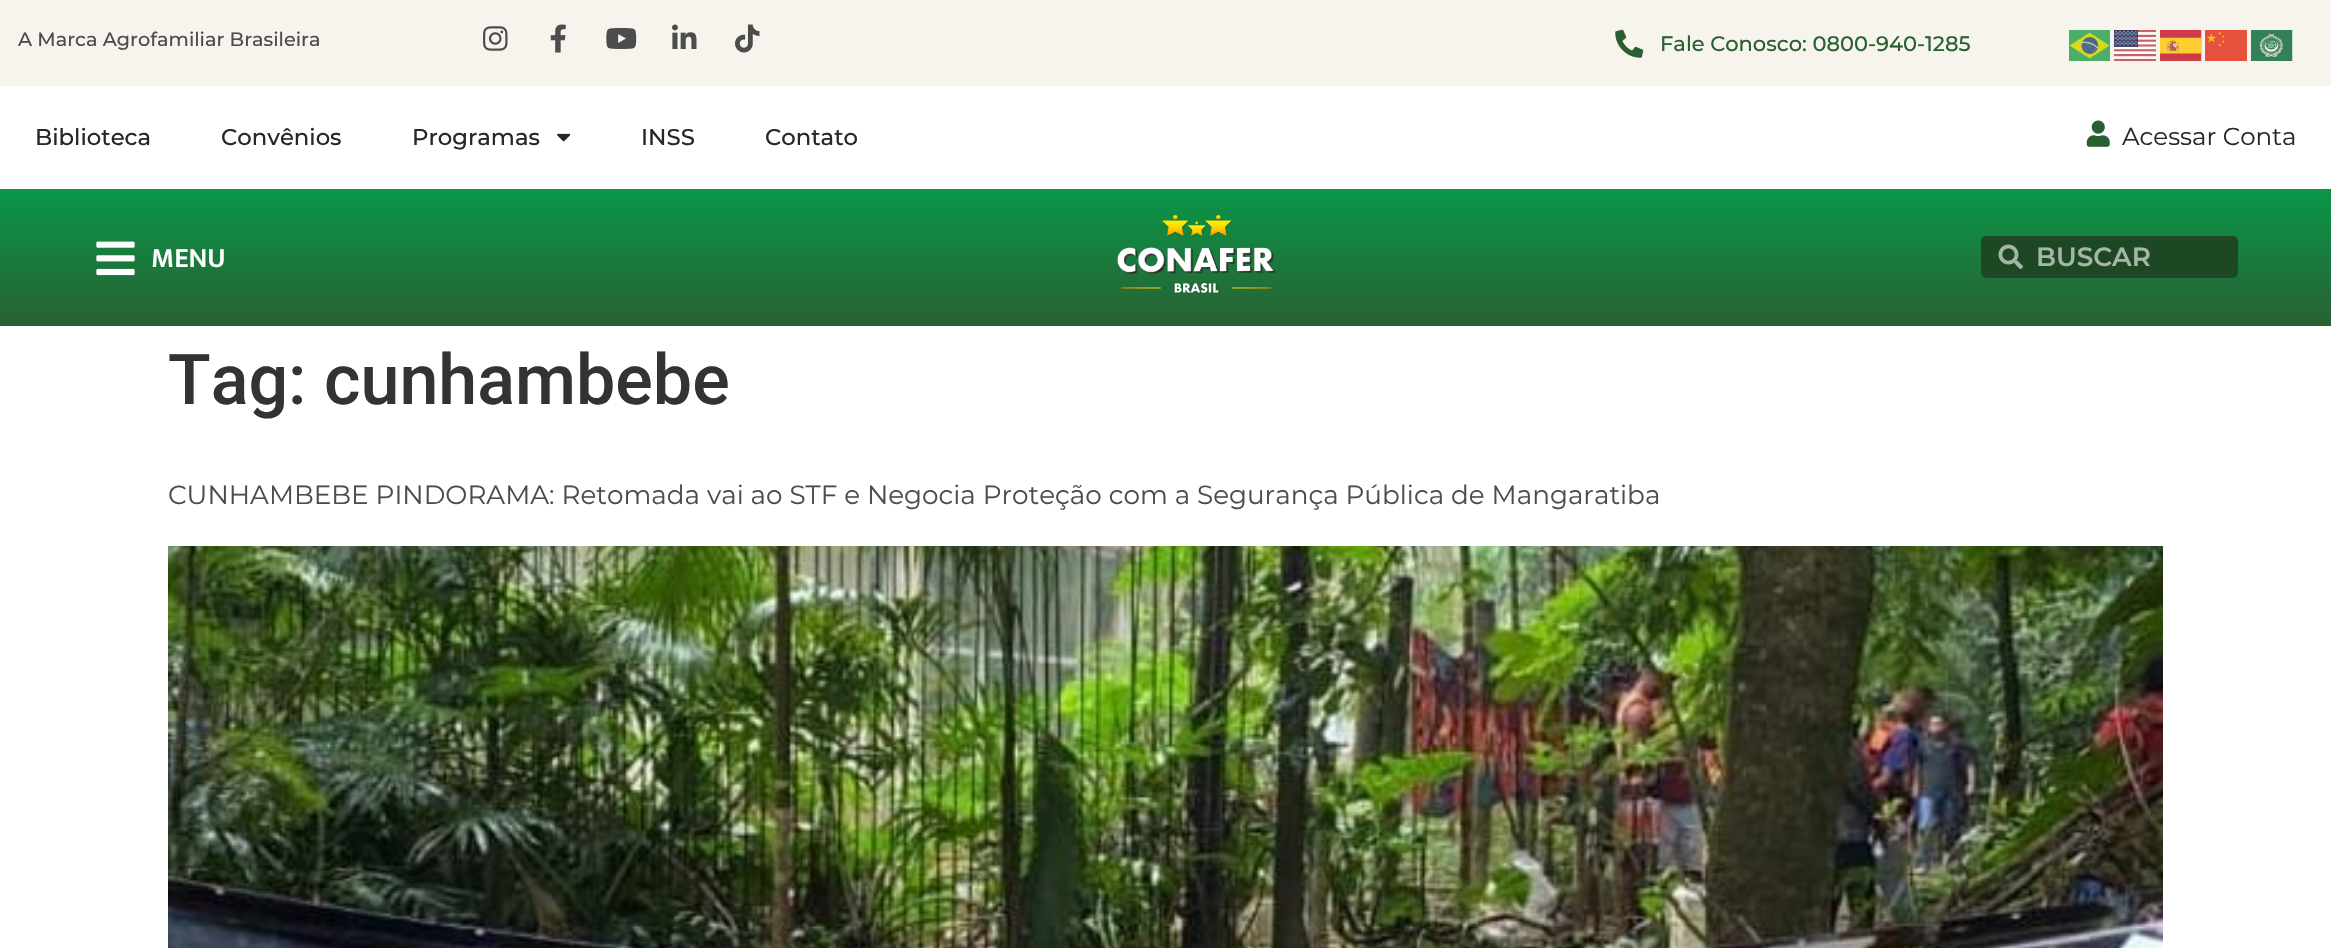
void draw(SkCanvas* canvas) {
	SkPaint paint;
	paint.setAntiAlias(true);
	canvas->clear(0xffffffff);
	paint.setColor(0xfff6f4ed);
	canvas->drawRect(SkRect::MakeXYWH(0, 0, 2331, 86), paint);
	SkFont f1(fontMgr->matchFamilyStyle("Montserrat", SkFontStyle(500, SkFontStyle::kNormal_Width, SkFontStyle::kUpright_Slant)), 19.25);
	f1.setSubpixel(true);
	paint.setColor(0xff4c4c4c);
	canvas->drawString("A Marca Agrofamiliar Brasileira", 18, 46, f1, paint);
	canvas->drawImageRect(SkImages::DeferredFromEncodedData(SkData::MakeFromFileName("img1.png")), SkRect::MakeXYWH(483, 26, 25, 25), SkSamplingOptions());
	canvas->drawImageRect(SkImages::DeferredFromEncodedData(SkData::MakeFromFileName("img2.png")), SkRect::MakeXYWH(550, 24, 16, 29), SkSamplingOptions());
	canvas->drawImageRect(SkImages::DeferredFromEncodedData(SkData::MakeFromFileName("img3.png")), SkRect::MakeXYWH(606, 28, 31, 21), SkSamplingOptions());
	canvas->drawImageRect(SkImages::DeferredFromEncodedData(SkData::MakeFromFileName("img4.png")), SkRect::MakeXYWH(672, 24, 25, 25), SkSamplingOptions());
	canvas->drawImageRect(SkImages::DeferredFromEncodedData(SkData::MakeFromFileName("img5.png")), SkRect::MakeXYWH(735, 24, 25, 29), SkSamplingOptions());
	canvas->drawImageRect(SkImages::DeferredFromEncodedData(SkData::MakeFromFileName("img6.png")), SkRect::MakeXYWH(1615, 29, 29, 29), SkSamplingOptions());
	SkFont f2(fontMgr->matchFamilyStyle("Montserrat", SkFontStyle(500, SkFontStyle::kNormal_Width, SkFontStyle::kUpright_Slant)), 21);
	f2.setSubpixel(true);
	paint.setColor(0xff2a5f32);
	canvas->drawString("Fale Conosco: 0800-940-1285", 1660, 51, f2, paint);
	canvas->drawImageRect(SkImages::DeferredFromEncodedData(SkData::MakeFromFileName("img7.png")), SkRect::MakeXYWH(2069, 30, 41, 31), SkSamplingOptions());
	canvas->drawImageRect(SkImages::DeferredFromEncodedData(SkData::MakeFromFileName("img8.png")), SkRect::MakeXYWH(2114, 30, 42, 31), SkSamplingOptions());
	canvas->drawImageRect(SkImages::DeferredFromEncodedData(SkData::MakeFromFileName("img9.png")), SkRect::MakeXYWH(2160, 30, 42, 31), SkSamplingOptions());
	canvas->drawImageRect(SkImages::DeferredFromEncodedData(SkData::MakeFromFileName("img10.png")), SkRect::MakeXYWH(2205, 30, 42, 31), SkSamplingOptions());
	canvas->drawImageRect(SkImages::DeferredFromEncodedData(SkData::MakeFromFileName("img11.png")), SkRect::MakeXYWH(2251, 30, 42, 31), SkSamplingOptions());
	SkFont f3(fontMgr->matchFamilyStyle("Montserrat", SkFontStyle(500, SkFontStyle::kNormal_Width, SkFontStyle::kUpright_Slant)), 22.75);
	f3.setSubpixel(true);
	paint.setColor(0xff272727);
	canvas->drawString("Biblioteca", 35, 145, f3, paint);
	canvas->drawString("Convênios", 221, 145, f3, paint);
	canvas->drawString("Programas", 412, 145, f3, paint);
	canvas->drawImageRect(SkImages::DeferredFromEncodedData(SkData::MakeFromFileName("img12.png")), SkRect::MakeXYWH(557, 133, 14, 9), SkSamplingOptions());
	canvas->drawString("INSS", 641, 145, f3, paint);
	canvas->drawString("Contato", 765, 145, f3, paint);
	canvas->drawImageRect(SkImages::DeferredFromEncodedData(SkData::MakeFromFileName("img13.png")), SkRect::MakeXYWH(2086, 120, 24, 27), SkSamplingOptions());
	SkFont f4(fontMgr->matchFamilyStyle("Montserrat", SkFontStyle::Normal()), 24.5);
	f4.setSubpixel(true);
	canvas->drawString("Acessar Conta", 2122, 145, f4, paint);
	{
		const SkColor colors[] = {0xff099749, 0xff2a5f32};
		const float stops[] = {0, 1};
		const SkPoint ends[] = {{1166, 189}, {1166, 326}};
		paint.setShader(SkGradientShader::MakeLinear(ends, colors, stops, 2, SkTileMode::kClamp));
		paint.setAlpha(255);
	}
	canvas->drawRect(SkRect::MakeXYWH(0, 189, 2331, 137), paint);
	canvas->drawImageRect(SkImages::DeferredFromEncodedData(SkData::MakeFromFileName("img14.png")), SkRect::MakeXYWH(96, 241, 39, 35), SkSamplingOptions());
	SkFont f5(fontMgr->matchFamilyStyle("Mukta", SkFontStyle(600, SkFontStyle::kNormal_Width, SkFontStyle::kUpright_Slant)), 28);
	f5.setSubpixel(true);
	paint.setShader(nullptr);
	paint.setColor(0xffffffff);
	canvas->drawString("MENU", 151, 267, f5, paint);
	canvas->drawImageRect(SkImages::DeferredFromEncodedData(SkData::MakeFromFileName("img15.png")), SkRect::MakeXYWH(1117, 215, 159, 79), SkSamplingOptions());
	paint.setColor(0xff1e4724);
	canvas->drawRoundRect(SkRect::MakeXYWH(1981, 236, 257, 42), 5, 5, paint);
	canvas->drawImageRect(SkImages::DeferredFromEncodedData(SkData::MakeFromFileName("img16.png")), SkRect::MakeXYWH(1998, 244, 25, 25), SkSamplingOptions());
	SkFont f6(fontMgr->matchFamilyStyle("Montserrat", SkFontStyle(600, SkFontStyle::kNormal_Width, SkFontStyle::kUpright_Slant)), 26.25);
	f6.setSubpixel(true);
	paint.setColor(0xffa5b5a7);
	canvas->drawString("BUSCAR", 2036, 266, f6, paint);
	SkFont f7(fontMgr->matchFamilyStyle("Roboto", SkFontStyle(500, SkFontStyle::kNormal_Width, SkFontStyle::kUpright_Slant)), 70);
	f7.setSubpixel(true);
	paint.setColor(0xff333333);
	canvas->drawString("Tag: cunhambebe", 168, 404, f7, paint);
	SkFont f8(fontMgr->matchFamilyStyle("Montserrat", SkFontStyle::Normal()), 26.25);
	f8.setSubpixel(true);
	paint.setColor(0xff4c4c4c);
	canvas->drawString("CUNHAMBEBE PINDORAMA: Retomada vai ao STF e Negocia Proteção com a Segurança Pública de Mangaratiba", 168, 504, f8, paint);
	canvas->drawImageRect(SkImages::DeferredFromEncodedData(SkData::MakeFromFileName("img17.png")), SkRect::MakeXYWH(168, 546, 1995, 402), SkSamplingOptions());
}
